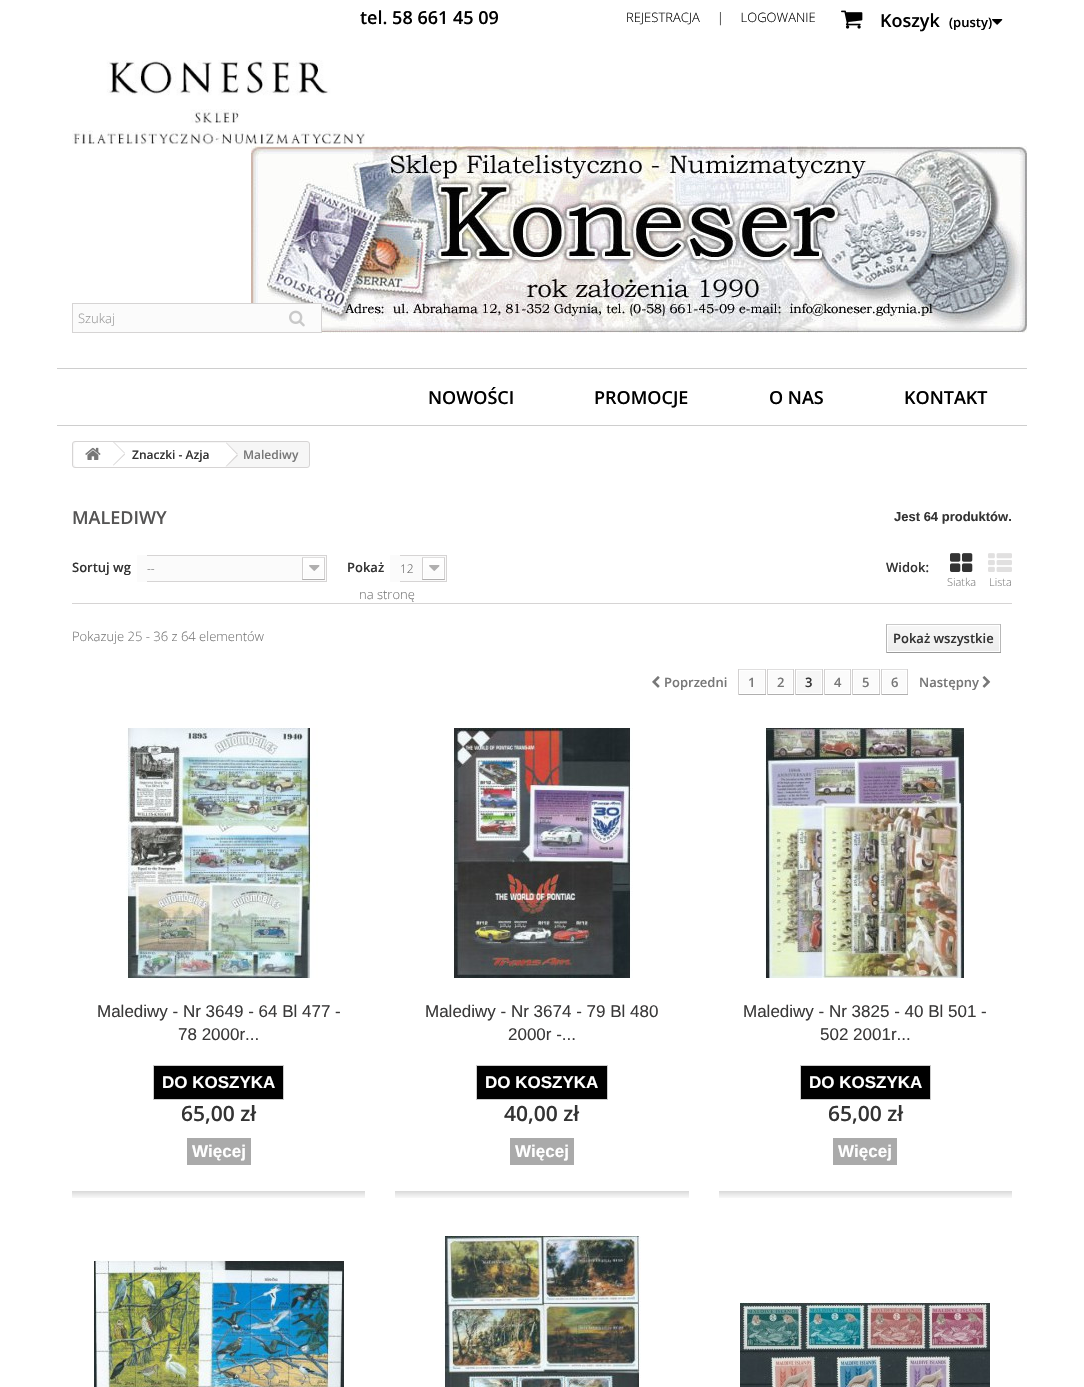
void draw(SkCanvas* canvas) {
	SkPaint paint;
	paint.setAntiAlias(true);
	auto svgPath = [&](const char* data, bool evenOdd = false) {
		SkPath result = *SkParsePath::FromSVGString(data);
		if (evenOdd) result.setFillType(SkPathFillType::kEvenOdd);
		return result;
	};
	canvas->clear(0xffffffff);
	SkFont f1(fontMgr->matchFamilyStyle("Open Sans", SkFontStyle(600, SkFontStyle::kNormal_Width, SkFontStyle::kUpright_Slant)), 18);
	f1.setSubpixel(true);
	paint.setColor(0xff000000);
	canvas->drawString("tel. 58 661 45 09", 360, 24, f1, paint);
	SkFont f2(fontMgr->matchFamilyStyle("Open Sans", SkFontStyle(300, SkFontStyle::kNormal_Width, SkFontStyle::kUpright_Slant)), 13);
	f2.setSubpixel(true);
	canvas->drawString("REJESTRACJA     |     LOGOWANIE", 626, 22, f2, paint);
	canvas->drawImageRect(SkImages::DeferredFromEncodedData(SkData::MakeFromFileName("img1.png")), SkRect::MakeXYWH(841, 10, 22, 19), SkSamplingOptions());
	canvas->drawString("Koszyk", 880, 27, f1, paint);
	SkFont f3(fontMgr->matchFamilyStyle("Open Sans", SkFontStyle(600, SkFontStyle::kNormal_Width, SkFontStyle::kUpright_Slant)), 13);
	f3.setSubpixel(true);
	canvas->drawString("(pusty)", 949, 27, f3, paint);
	canvas->drawImageRect(SkImages::DeferredFromEncodedData(SkData::MakeFromFileName("img2.png")), SkRect::MakeXYWH(992, 19, 11, 6), SkSamplingOptions());
	canvas->drawImageRect(SkImages::DeferredFromEncodedData(SkData::MakeFromFileName("img3.png")), SkRect::MakeXYWH(72, 60, 293, 85), SkSamplingOptions());
	canvas->drawImageRect(SkImages::DeferredFromEncodedData(SkData::MakeFromFileName("img5.png")), SkRect::MakeXYWH(251, 146, 776, 187), SkSamplingOptions());
	paint.setColor(0xfffbfbfb);
	canvas->drawRect(SkRect::MakeXYWH(72.5, 303.5, 249, 29), paint);
	paint.setStroke(true);
	paint.setStrokeWidth(1);
	paint.setColor(0xffd6d4d4);
	canvas->drawRect(SkRect::MakeXYWH(72.5, 303.5, 249, 29), paint);
	paint.setStroke(false);
	paint.setColor(0xff999999);
	canvas->drawString("Szukaj", 78, 323, f2, paint);
	canvas->drawImageRect(SkImages::DeferredFromEncodedData(SkData::MakeFromFileName("img4.png")), SkRect::MakeXYWH(289, 310, 16, 17), SkSamplingOptions());
	paint.setColor(0xffcecece);
	canvas->drawRect(SkRect::MakeXYWH(57, 368, 970, 1), paint);
	canvas->drawRect(SkRect::MakeXYWH(57, 425, 970, 1), paint);
	paint.setColor(0xff000000);
	canvas->drawString("NOWOŚCI", 428, 404, f1, paint);
	canvas->drawString("PROMOCJE", 594, 404, f1, paint);
	canvas->drawString("O NAS", 769, 404, f1, paint);
	canvas->drawString("KONTAKT", 904, 404, f1, paint);
	paint.setColor(0xfff6f6f6);
	canvas->drawRoundRect(SkRect::MakeXYWH(72.5, 441.5, 237, 26), 2.5, 2.5, paint);
	paint.setStroke(true);
	paint.setColor(0xffd6d4d4);
	canvas->drawRoundRect(SkRect::MakeXYWH(72.5, 441.5, 237, 26), 2.5, 2.5, paint);
	paint.setStroke(false);
	paint.setColor(0xffffffff);
	canvas->drawPath(svgPath("M77 442H112V467H77C75.5 467 74 465.5 74 464V445C74 443.5 75.5 442 77 442Z"), paint);
	canvas->drawImageRect(SkImages::DeferredFromEncodedData(SkData::MakeFromFileName("img6.png")), SkRect::MakeXYWH(85, 447, 16, 13), SkSamplingOptions());
	canvas->drawRect(SkRect::MakeXYWH(112, 443, 113, 24), paint);
	canvas->drawPath(svgPath("M114.5 442H111.5L101.5 452C101 453 101 454 101.5 455L111.5 465C112.5 465.5 113.5 465.5 114.5 465L124.5 455C125 454 125 453 124.5 452Z"), paint);
	paint.setColor(0xffd6d4d4);
	canvas->drawPath(svgPath("M113.5 441.5L125 453L124.5 453.5L113 442Z"), paint);
	canvas->drawPath(svgPath("M124.5 453.5L125 454.5L113.5 465.5L113 465Z"), paint);
	SkFont f4(fontMgr->matchFamilyStyle("Open Sans", SkFontStyle(600, SkFontStyle::kNormal_Width, SkFontStyle::kUpright_Slant)), 12);
	f4.setSubpixel(true);
	paint.setColor(0xff333333);
	canvas->drawString("Znaczki - Azja", 132, 459, f4, paint);
	paint.setColor(0xffffffff);
	canvas->drawPath(svgPath("M227 443L237 453C238 454 238 455 237 456L227 466C226.5 466.5 225 466.5 224.5 466L214.5 456C213.5 455 213.5 454 214.5 453L224.5 443C225 442.5 226.5 442.5 227 443Z"), paint);
	paint.setColor(0xffd6d4d4);
	canvas->drawPath(svgPath("M226.5 442.5L238 454L237 454.5L226 443Z"), paint);
	canvas->drawPath(svgPath("M237 454.5L238 455.5L226.5 466.5L226 466Z"), paint);
	paint.setColor(0xff777777);
	canvas->drawString("Malediwy", 243, 459, f4, paint);
	paint.setColor(0xff555454);
	canvas->drawString("MALEDIWY", 72, 524, f1, paint);
	SkFont f5(fontMgr->matchFamilyStyle("Liberation Sans", SkFontStyle::Bold()), 13);
	f5.setSubpixel(true);
	paint.setColor(0xff333333);
	canvas->drawString("Jest 64 produktów.", 894, 521, f5, paint);
	paint.setColor(0xffd6d4d4);
	canvas->drawRect(SkRect::MakeXYWH(72, 603, 940, 1), paint);
	paint.setColor(0xff333333);
	canvas->drawString("Sortuj wg", 72, 572, f3, paint);
	paint.setColor(0xfffbfbfb);
	canvas->drawRect(SkRect::MakeXYWH(137, 555, 10, 27), paint);
	canvas->drawImageRect(SkImages::DeferredFromEncodedData(SkData::MakeFromFileName("img7.png")), SkRect::MakeXYWH(147, 555, 180, 27), SkSamplingOptions());
	SkFont f6(fontMgr->matchFamilyStyle("Open Sans", SkFontStyle(300, SkFontStyle::kNormal_Width, SkFontStyle::kUpright_Slant)), 12);
	f6.setSubpixel(true);
	paint.setColor(0xff666666);
	canvas->drawString("--", 147, 573, f6, paint);
	paint.setColor(0xff333333);
	canvas->drawString("Pokaż", 347, 572, f3, paint);
	paint.setColor(0xfffbfbfb);
	canvas->drawRect(SkRect::MakeXYWH(390, 555, 10, 27), paint);
	canvas->drawImageRect(SkImages::DeferredFromEncodedData(SkData::MakeFromFileName("img8.png")), SkRect::MakeXYWH(400, 555, 47, 27), SkSamplingOptions());
	paint.setColor(0xff666666);
	canvas->drawString("12", 400, 573, f6, paint);
	paint.setColor(0xff777777);
	canvas->drawString("na stronę", 359, 599, f2, paint);
	paint.setColor(0xff333333);
	canvas->drawString("Widok:", 886, 572, f3, paint);
	canvas->drawImageRect(SkImages::DeferredFromEncodedData(SkData::MakeFromFileName("img9.png")), SkRect::MakeXYWH(950, 553, 23, 19), SkSamplingOptions());
	SkFont f7(fontMgr->matchFamilyStyle("Open Sans", SkFontStyle(300, SkFontStyle::kNormal_Width, SkFontStyle::kUpright_Slant)), 11);
	f7.setSubpixel(true);
	paint.setColor(0xff808080);
	canvas->drawString("Siatka", 947, 586, f7, paint);
	canvas->drawImageRect(SkImages::DeferredFromEncodedData(SkData::MakeFromFileName("img10.png")), SkRect::MakeXYWH(988, 553, 24, 19), SkSamplingOptions());
	canvas->drawString("Lista", 989, 586, f7, paint);
	paint.setColor(0xff777777);
	canvas->drawString("Pokazuje 25 - 36 z 64 elementów", 72, 641, f2, paint);
	paint.setColor(0xffcacaca);
	canvas->drawRect(SkRect::MakeXYWH(886, 624, 115, 1), paint);
	paint.setColor(0xffb7b7b7);
	canvas->drawRect(SkRect::MakeXYWH(1000, 624, 1, 29), paint);
	paint.setColor(0xff9a9a9a);
	canvas->drawRect(SkRect::MakeXYWH(886, 652, 115, 1), paint);
	paint.setColor(0xffb7b7b7);
	canvas->drawRect(SkRect::MakeXYWH(886, 624, 1, 29), paint);
	{
		const SkColor colors[] = {0xfff7f7f7, 0xffededed};
		const float stops[] = {0, 1};
		const SkPoint ends[] = {{944, 626}, {944, 651}};
		paint.setShader(SkGradientShader::MakeLinear(ends, colors, stops, 2, SkTileMode::kClamp));
		paint.setAlpha(255);
	}
	canvas->drawRect(SkRect::MakeXYWH(888, 626, 111, 25), paint);
	paint.setShader(nullptr);
	paint.setColor(0xff333333);
	canvas->drawString("Pokaż wszystkie", 893, 643, f3, paint);
	canvas->drawImageRect(SkImages::DeferredFromEncodedData(SkData::MakeFromFileName("img11.png")), SkRect::MakeXYWH(652, 676, 8, 12), SkSamplingOptions());
	paint.setColor(0xff777777);
	canvas->drawString("Poprzedni", 664, 687, f3, paint);
	paint.setColor(0xffdfdede);
	canvas->drawRect(SkRect::MakeXYWH(738, 669, 28, 1), paint);
	paint.setColor(0xffd2d0d0);
	canvas->drawRect(SkRect::MakeXYWH(765, 669, 1, 26), paint);
	paint.setColor(0xffb0afaf);
	canvas->drawRect(SkRect::MakeXYWH(738, 694, 28, 1), paint);
	paint.setColor(0xffd2d0d0);
	canvas->drawRect(SkRect::MakeXYWH(738, 669, 1, 26), paint);
	paint.setColor(0xfffbfbfb);
	canvas->drawRect(SkRect::MakeXYWH(740, 671, 24, 22), paint);
	paint.setColor(0xff777777);
	canvas->drawString("1", 748, 687, f3, paint);
	paint.setColor(0xffdfdede);
	canvas->drawRect(SkRect::MakeXYWH(767, 669, 27, 1), paint);
	paint.setColor(0xffd2d0d0);
	canvas->drawRect(SkRect::MakeXYWH(793, 669, 1, 26), paint);
	paint.setColor(0xffb0afaf);
	canvas->drawRect(SkRect::MakeXYWH(767, 694, 27, 1), paint);
	paint.setColor(0xffd2d0d0);
	canvas->drawRect(SkRect::MakeXYWH(767, 669, 1, 26), paint);
	paint.setColor(0xfffbfbfb);
	canvas->drawRect(SkRect::MakeXYWH(769, 671, 23, 22), paint);
	paint.setColor(0xff777777);
	canvas->drawString("2", 777, 687, f3, paint);
	paint.setColor(0xffdfdede);
	canvas->drawRect(SkRect::MakeXYWH(795, 669, 28, 1), paint);
	paint.setColor(0xffd2d0d0);
	canvas->drawRect(SkRect::MakeXYWH(822, 669, 1, 26), paint);
	paint.setColor(0xffb0afaf);
	canvas->drawRect(SkRect::MakeXYWH(795, 694, 28, 1), paint);
	paint.setColor(0xffd2d0d0);
	canvas->drawRect(SkRect::MakeXYWH(795, 669, 1, 26), paint);
	paint.setColor(0xfff6f6f6);
	canvas->drawRect(SkRect::MakeXYWH(797, 671, 24, 22), paint);
	paint.setColor(0xff333333);
	canvas->drawString("3", 805, 687, f3, paint);
	paint.setColor(0xffdfdede);
	canvas->drawRect(SkRect::MakeXYWH(824, 669, 27, 1), paint);
	paint.setColor(0xffd2d0d0);
	canvas->drawRect(SkRect::MakeXYWH(850, 669, 1, 26), paint);
	paint.setColor(0xffb0afaf);
	canvas->drawRect(SkRect::MakeXYWH(824, 694, 27, 1), paint);
	paint.setColor(0xffd2d0d0);
	canvas->drawRect(SkRect::MakeXYWH(824, 669, 1, 26), paint);
	paint.setColor(0xfffbfbfb);
	canvas->drawRect(SkRect::MakeXYWH(826, 671, 23, 22), paint);
	paint.setColor(0xff777777);
	canvas->drawString("4", 834, 687, f3, paint);
	paint.setColor(0xffdfdede);
	canvas->drawRect(SkRect::MakeXYWH(852, 669, 28, 1), paint);
	paint.setColor(0xffd2d0d0);
	canvas->drawRect(SkRect::MakeXYWH(879, 669, 1, 26), paint);
	paint.setColor(0xffb0afaf);
	canvas->drawRect(SkRect::MakeXYWH(852, 694, 28, 1), paint);
	paint.setColor(0xffd2d0d0);
	canvas->drawRect(SkRect::MakeXYWH(852, 669, 1, 26), paint);
	paint.setColor(0xfffbfbfb);
	canvas->drawRect(SkRect::MakeXYWH(854, 671, 24, 22), paint);
	paint.setColor(0xff777777);
	canvas->drawString("5", 862, 687, f3, paint);
	paint.setColor(0xffdfdede);
	canvas->drawRect(SkRect::MakeXYWH(881, 669, 27, 1), paint);
	paint.setColor(0xffd2d0d0);
	canvas->drawRect(SkRect::MakeXYWH(907, 669, 1, 26), paint);
	paint.setColor(0xffb0afaf);
	canvas->drawRect(SkRect::MakeXYWH(881, 694, 27, 1), paint);
	paint.setColor(0xffd2d0d0);
	canvas->drawRect(SkRect::MakeXYWH(881, 669, 1, 26), paint);
	paint.setColor(0xfffbfbfb);
	canvas->drawRect(SkRect::MakeXYWH(883, 671, 23, 22), paint);
	paint.setColor(0xff777777);
	canvas->drawString("6", 891, 687, f3, paint);
	canvas->drawString("Następny", 919, 687, f3, paint);
	canvas->drawImageRect(SkImages::DeferredFromEncodedData(SkData::MakeFromFileName("img12.png")), SkRect::MakeXYWH(982, 676, 9, 12), SkSamplingOptions());
	canvas->drawImageRect(SkImages::DeferredFromEncodedData(SkData::MakeFromFileName("img13.png")), SkRect::MakeXYWH(126, 728, 192, 250), SkSamplingOptions());
	SkFont f8(fontMgr->matchFamilyStyle("Liberation Sans", SkFontStyle::Normal()), 17);
	f8.setSubpixel(true);
	paint.setColor(0xff3a3939);
	canvas->drawString("Malediwy - Nr 3649 - 64 Bl 477 -", 97, 1017, f8, paint);
	canvas->drawString("78 2000r...", 178, 1040, f8, paint);
	paint.setStroke(true);
	paint.setColor(0xffcccccc);
	canvas->drawRect(SkRect::MakeXYWH(153.5, 1065.5, 130, 34), paint);
	paint.setStroke(false);
	paint.setColor(0xff000000);
	canvas->drawRect(SkRect::MakeXYWH(154, 1066, 129, 33), paint);
	SkFont f9(fontMgr->matchFamilyStyle("Liberation Sans", SkFontStyle::Bold()), 17);
	f9.setSubpixel(true);
	paint.setColor(0xffffffff);
	canvas->drawString("DO KOSZYKA", 162, 1088, f9, paint);
	SkFont f10(fontMgr->matchFamilyStyle("Open Sans", SkFontStyle(600, SkFontStyle::kNormal_Width, SkFontStyle::kUpright_Slant)), 21);
	f10.setSubpixel(true);
	paint.setColor(0xff333333);
	canvas->drawString("65,00 zł", 181, 1121, f10, paint);
	paint.setColor(0xffaaaaaa);
	canvas->drawRect(SkRect::MakeXYWH(187, 1138, 64, 27), paint);
	paint.setColor(0xffffffff);
	canvas->drawString("Więcej", 192, 1157, f9, paint);
	canvas->drawImageRect(SkImages::DeferredFromEncodedData(SkData::MakeFromFileName("img14.png")), SkRect::MakeXYWH(72, 1191, 293, 7), SkSamplingOptions());
	canvas->drawImageRect(SkImages::DeferredFromEncodedData(SkData::MakeFromFileName("img15.png")), SkRect::MakeXYWH(452, 728, 181, 250), SkSamplingOptions());
	paint.setColor(0xff3a3939);
	canvas->drawString("Malediwy - Nr 3674 - 79 Bl 480", 425, 1017, f8, paint);
	canvas->drawString("2000r -...", 508, 1040, f8, paint);
	paint.setStroke(true);
	paint.setColor(0xffcccccc);
	canvas->drawRect(SkRect::MakeXYWH(476.5, 1065.5, 131, 34), paint);
	paint.setStroke(false);
	paint.setColor(0xff000000);
	canvas->drawRect(SkRect::MakeXYWH(477, 1066, 130, 33), paint);
	paint.setColor(0xffffffff);
	canvas->drawString("DO KOSZYKA", 485, 1088, f9, paint);
	paint.setColor(0xff333333);
	canvas->drawString("40,00 zł", 504, 1121, f10, paint);
	paint.setColor(0xffaaaaaa);
	canvas->drawRect(SkRect::MakeXYWH(510, 1138, 64, 27), paint);
	paint.setColor(0xffffffff);
	canvas->drawString("Więcej", 515, 1157, f9, paint);
	canvas->drawImageRect(SkImages::DeferredFromEncodedData(SkData::MakeFromFileName("img16.png")), SkRect::MakeXYWH(395, 1191, 294, 7), SkSamplingOptions());
	canvas->drawImageRect(SkImages::DeferredFromEncodedData(SkData::MakeFromFileName("img17.png")), SkRect::MakeXYWH(764, 728, 200, 250), SkSamplingOptions());
	paint.setColor(0xff3a3939);
	canvas->drawString("Malediwy - Nr 3825 - 40 Bl 501 -", 743, 1017, f8, paint);
	canvas->drawString("502 2001r...", 820, 1040, f8, paint);
	paint.setStroke(true);
	paint.setColor(0xffcccccc);
	canvas->drawRect(SkRect::MakeXYWH(800.5, 1065.5, 130, 34), paint);
	paint.setStroke(false);
	paint.setColor(0xff000000);
	canvas->drawRect(SkRect::MakeXYWH(801, 1066, 129, 33), paint);
	paint.setColor(0xffffffff);
	canvas->drawString("DO KOSZYKA", 809, 1088, f9, paint);
	paint.setColor(0xff333333);
	canvas->drawString("65,00 zł", 828, 1121, f10, paint);
	paint.setColor(0xffaaaaaa);
	canvas->drawRect(SkRect::MakeXYWH(833, 1138, 64, 27), paint);
	paint.setColor(0xffffffff);
	canvas->drawString("Więcej", 838, 1157, f9, paint);
	canvas->drawImageRect(SkImages::DeferredFromEncodedData(SkData::MakeFromFileName("img14.png")), SkRect::MakeXYWH(719, 1191, 293, 7), SkSamplingOptions());
	canvas->drawImageRect(SkImages::DeferredFromEncodedData(SkData::MakeFromFileName("img18.png")), SkRect::MakeXYWH(94, 1260, 250, 127), SkSamplingOptions());
	canvas->drawImageRect(SkImages::DeferredFromEncodedData(SkData::MakeFromFileName("img19.png")), SkRect::MakeXYWH(441, 1236, 200, 151), SkSamplingOptions());
	canvas->drawImageRect(SkImages::DeferredFromEncodedData(SkData::MakeFromFileName("img20.png")), SkRect::MakeXYWH(740, 1300, 250, 87), SkSamplingOptions());
}
